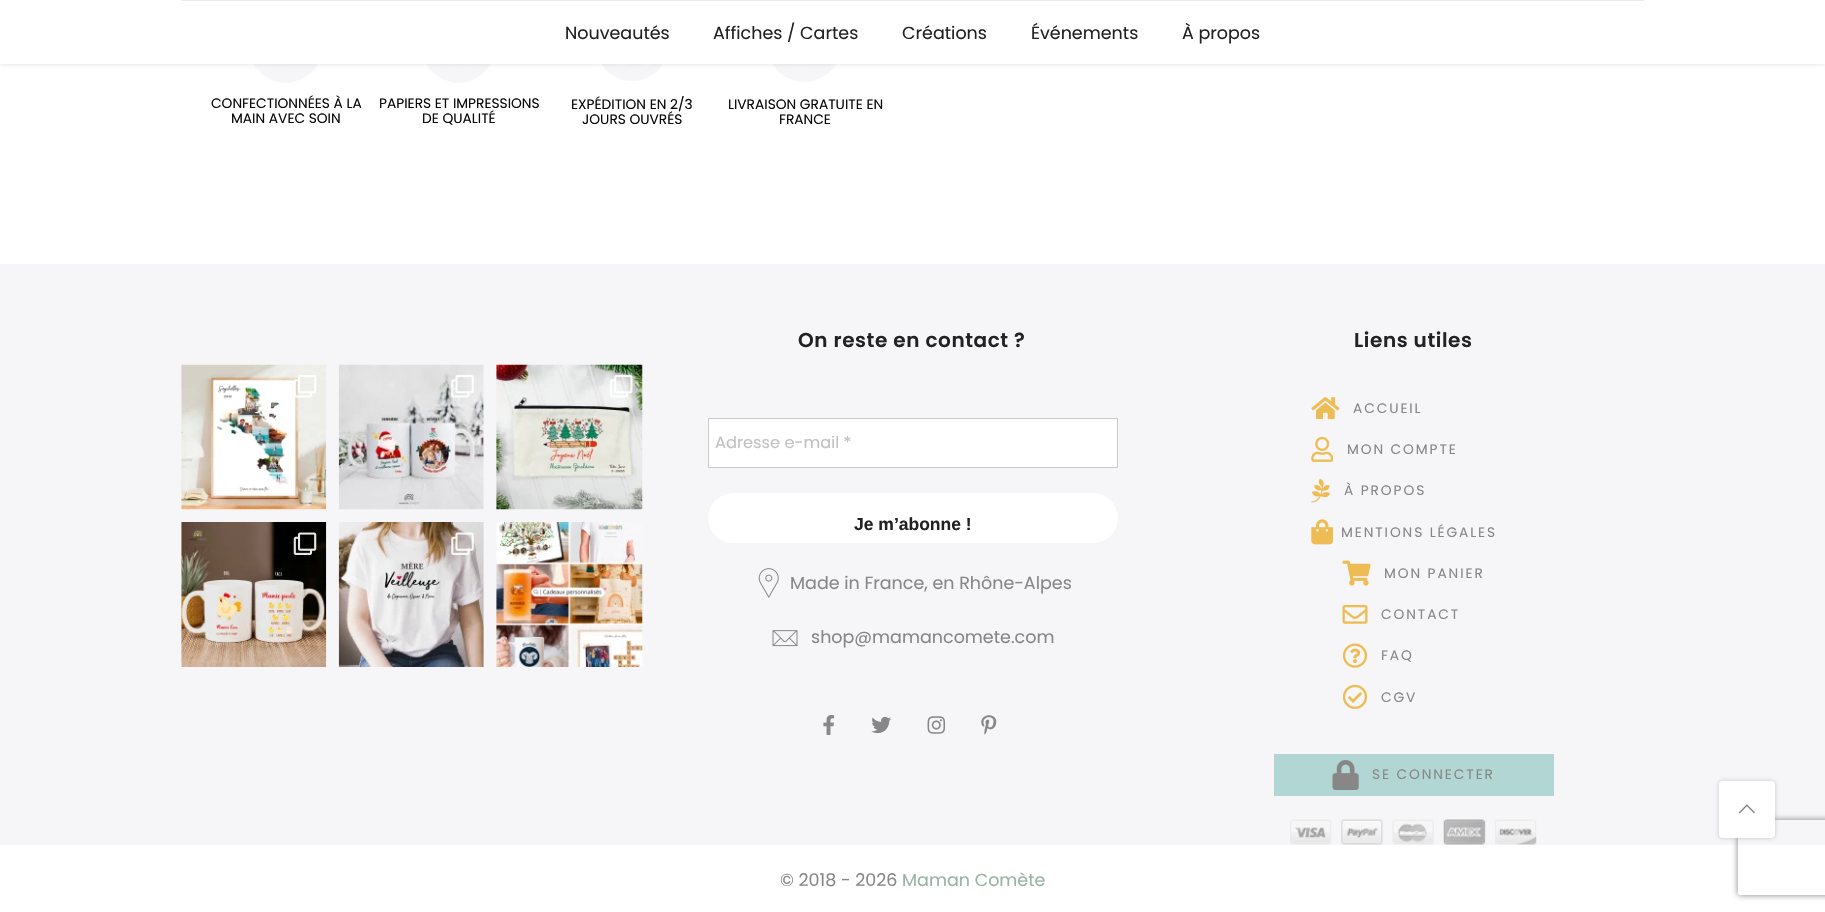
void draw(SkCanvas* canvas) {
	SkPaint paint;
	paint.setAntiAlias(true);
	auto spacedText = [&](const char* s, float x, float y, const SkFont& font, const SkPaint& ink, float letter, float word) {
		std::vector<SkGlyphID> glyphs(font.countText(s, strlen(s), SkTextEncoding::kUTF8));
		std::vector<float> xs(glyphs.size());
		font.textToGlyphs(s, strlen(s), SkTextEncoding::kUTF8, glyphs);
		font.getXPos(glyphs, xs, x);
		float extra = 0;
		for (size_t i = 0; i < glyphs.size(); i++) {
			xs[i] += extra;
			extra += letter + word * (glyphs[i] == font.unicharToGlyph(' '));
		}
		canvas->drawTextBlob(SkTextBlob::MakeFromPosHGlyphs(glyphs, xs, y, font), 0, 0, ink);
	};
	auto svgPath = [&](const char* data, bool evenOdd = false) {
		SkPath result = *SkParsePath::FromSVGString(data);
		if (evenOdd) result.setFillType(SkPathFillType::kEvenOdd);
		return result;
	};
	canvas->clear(0xffffffff);
	canvas->drawImageRect(SkImages::DeferredFromEncodedData(SkData::MakeFromFileName("img1.png")), SkRect::MakeXYWH(248, 64, 75, 19), SkSamplingOptions());
	canvas->drawImageRect(SkImages::DeferredFromEncodedData(SkData::MakeFromFileName("img2.png")), SkRect::MakeXYWH(421, 64, 75, 19), SkSamplingOptions());
	canvas->drawImageRect(SkImages::DeferredFromEncodedData(SkData::MakeFromFileName("img3.png")), SkRect::MakeXYWH(596, 64, 72, 17), SkSamplingOptions());
	canvas->drawImageRect(SkImages::DeferredFromEncodedData(SkData::MakeFromFileName("img4.png")), SkRect::MakeXYWH(767, 64, 74, 18), SkSamplingOptions());
	paint.setColor(0x1f000000);
	paint.setMaskFilter(SkMaskFilter::MakeBlur(kNormal_SkBlurStyle, 2));
	canvas->drawRect(SkRect::MakeXYWH(0, 0, 1825, 64), paint);
	paint.setMaskFilter(nullptr);
	paint.setColor(0xffffffff);
	canvas->drawRect(SkRect::MakeXYWH(0, 0, 1825, 64), paint);
	paint.setColor(0xffececec);
	canvas->drawRect(SkRect::MakeXYWH(181, 0, 1463, 1), paint);
	SkFont f1(fontMgr->matchFamilyStyle("Poppins", SkFontStyle::Normal()), 17.5);
	f1.setSubpixel(true);
	paint.setColor(0xff222222);
	canvas->drawString("Nouveautés", 565, 39, f1, paint);
	canvas->drawString("Affiches / Cartes", 713, 39, f1, paint);
	canvas->drawString("Créations", 902, 39, f1, paint);
	canvas->drawString("Événements", 1031, 39, f1, paint);
	canvas->drawString("À propos", 1182, 39, f1, paint);
	SkFont f2(fontMgr->matchFamilyStyle("Poppins", SkFontStyle::Normal()), 13.75);
	f2.setSubpixel(true);
	paint.setColor(0xff0a0a0a);
	canvas->drawString("CONFECTIONNÉES À LA", 211, 108, f2, paint);
	canvas->drawString("MAIN AVEC SOIN", 231, 123, f2, paint);
	canvas->drawString("PAPIERS ET IMPRESSIONS", 379, 108, f2, paint);
	canvas->drawString("DE QUALITÉ", 422, 123, f2, paint);
	canvas->drawString("EXPÉDITION EN 2/3", 571, 109, f2, paint);
	canvas->drawString("JOURS OUVRÉS", 582, 124, f2, paint);
	canvas->drawString("LIVRAISON GRATUITE EN", 728, 109, f2, paint);
	canvas->drawString("FRANCE", 779, 124, f2, paint);
	paint.setColor(0xfff6f6f8);
	canvas->drawRect(SkRect::MakeXYWH(0, 264, 1825, 581), paint);
	canvas->drawImageRect(SkImages::DeferredFromEncodedData(SkData::MakeFromFileName("img5.png")), SkRect::MakeXYWH(181, 364, 146, 146), SkSamplingOptions());
	canvas->drawImageRect(SkImages::DeferredFromEncodedData(SkData::MakeFromFileName("img6.png")), SkRect::MakeXYWH(294, 375, 23, 23), SkSamplingOptions());
	canvas->drawImageRect(SkImages::DeferredFromEncodedData(SkData::MakeFromFileName("img7.png")), SkRect::MakeXYWH(338, 364, 146, 146), SkSamplingOptions());
	canvas->drawImageRect(SkImages::DeferredFromEncodedData(SkData::MakeFromFileName("img8.png")), SkRect::MakeXYWH(451, 375, 23, 23), SkSamplingOptions());
	canvas->drawImageRect(SkImages::DeferredFromEncodedData(SkData::MakeFromFileName("img9.png")), SkRect::MakeXYWH(496, 364, 147, 146), SkSamplingOptions());
	canvas->drawImageRect(SkImages::DeferredFromEncodedData(SkData::MakeFromFileName("img10.png")), SkRect::MakeXYWH(610, 375, 23, 23), SkSamplingOptions());
	canvas->drawImageRect(SkImages::DeferredFromEncodedData(SkData::MakeFromFileName("img11.png")), SkRect::MakeXYWH(181, 522, 146, 145), SkSamplingOptions());
	canvas->drawImageRect(SkImages::DeferredFromEncodedData(SkData::MakeFromFileName("img12.png")), SkRect::MakeXYWH(293, 532, 24, 23), SkSamplingOptions());
	canvas->drawImageRect(SkImages::DeferredFromEncodedData(SkData::MakeFromFileName("img13.png")), SkRect::MakeXYWH(338, 522, 146, 145), SkSamplingOptions());
	canvas->drawImageRect(SkImages::DeferredFromEncodedData(SkData::MakeFromFileName("img14.png")), SkRect::MakeXYWH(451, 532, 23, 23), SkSamplingOptions());
	canvas->drawImageRect(SkImages::DeferredFromEncodedData(SkData::MakeFromFileName("img15.png")), SkRect::MakeXYWH(496, 522, 147, 145), SkSamplingOptions());
	SkFont f3(fontMgr->matchFamilyStyle("Poppins", SkFontStyle(600, SkFontStyle::kNormal_Width, SkFontStyle::kUpright_Slant)), 20);
	f3.setSubpixel(true);
	paint.setColor(0xff222222);
	spacedText("On reste en contact ?", 798, 347, f3, paint, 0.6, 0);
	paint.setColor(0xffffffff);
	canvas->drawRect(SkRect::MakeXYWH(708.5, 418.5, 409, 49), paint);
	paint.setStroke(true);
	paint.setStrokeWidth(1);
	paint.setColor(0xffcccccc);
	canvas->drawRect(SkRect::MakeXYWH(708.5, 418.5, 409, 49), paint);
	SkFont f4(fontMgr->matchFamilyStyle("Poppins", SkFontStyle::Normal()), 16.25);
	f4.setSubpixel(true);
	paint.setStroke(false);
	paint.setColor(0xffc1c1c1);
	canvas->drawString("Adresse e-mail *", 715, 448, f4, paint);
	paint.setColor(0xffffffff);
	canvas->drawRoundRect(SkRect::MakeXYWH(708, 493, 410, 50), 25, 25, paint);
	SkFont f5(fontMgr->matchFamilyStyle("Liberation Sans", SkFontStyle::Bold()), 17.5);
	f5.setSubpixel(true);
	paint.setColor(0xff222222);
	canvas->drawString("Je m’abonne !", 854, 530, f5, paint);
	canvas->drawImageRect(SkImages::DeferredFromEncodedData(SkData::MakeFromFileName("img16.png")), SkRect::MakeXYWH(758, 568, 21, 30), SkSamplingOptions());
	paint.setColor(0xff878787);
	canvas->drawString("Made in France, en Rhône-Alpes", 790, 589, f1, paint);
	canvas->drawImageRect(SkImages::DeferredFromEncodedData(SkData::MakeFromFileName("img17.png")), SkRect::MakeXYWH(772, 630, 26, 17), SkSamplingOptions());
	canvas->drawString("shop@mamancomete.com", 811, 643, f1, paint);
	canvas->drawImageRect(SkImages::DeferredFromEncodedData(SkData::MakeFromFileName("img18.png")), SkRect::MakeXYWH(823, 715, 12, 20), SkSamplingOptions());
	canvas->drawImageRect(SkImages::DeferredFromEncodedData(SkData::MakeFromFileName("img19.png")), SkRect::MakeXYWH(871, 716, 20, 18), SkSamplingOptions());
	canvas->drawImageRect(SkImages::DeferredFromEncodedData(SkData::MakeFromFileName("img20.png")), SkRect::MakeXYWH(927, 716, 18, 18), SkSamplingOptions());
	canvas->drawImageRect(SkImages::DeferredFromEncodedData(SkData::MakeFromFileName("img21.png")), SkRect::MakeXYWH(981, 715, 16, 20), SkSamplingOptions());
	paint.setColor(0xff222222);
	spacedText("Liens utiles", 1354, 347, f3, paint, 0.6, 0);
	canvas->drawImageRect(SkImages::DeferredFromEncodedData(SkData::MakeFromFileName("img22.png")), SkRect::MakeXYWH(1311, 397, 29, 23), SkSamplingOptions());
	paint.setColor(0xff878787);
	spacedText("ACCUEIL", 1353, 413, f2, paint, 1.9, 0);
	canvas->drawImageRect(SkImages::DeferredFromEncodedData(SkData::MakeFromFileName("img23.png")), SkRect::MakeXYWH(1311, 436, 23, 26), SkSamplingOptions());
	spacedText("MON COMPTE", 1347, 454, f2, paint, 1.9, 0);
	canvas->drawImageRect(SkImages::DeferredFromEncodedData(SkData::MakeFromFileName("img24.png")), SkRect::MakeXYWH(1311, 478, 19, 25), SkSamplingOptions());
	spacedText("À PROPOS", 1344, 495, f2, paint, 1.9, 0);
	canvas->drawImageRect(SkImages::DeferredFromEncodedData(SkData::MakeFromFileName("img25.png")), SkRect::MakeXYWH(1311, 519, 23, 26), SkSamplingOptions());
	spacedText("MENTIONS LÉGALES", 1341, 537, f2, paint, 1.9, 0);
	canvas->drawImageRect(SkImages::DeferredFromEncodedData(SkData::MakeFromFileName("img26.png")), SkRect::MakeXYWH(1342, 560, 29, 26), SkSamplingOptions());
	spacedText("MON PANIER", 1384, 578, f2, paint, 1.9, 0);
	canvas->drawImageRect(SkImages::DeferredFromEncodedData(SkData::MakeFromFileName("img27.png")), SkRect::MakeXYWH(1342, 605, 26, 19), SkSamplingOptions());
	spacedText("CONTACT", 1381, 619, f2, paint, 1.9, 0);
	canvas->drawImageRect(SkImages::DeferredFromEncodedData(SkData::MakeFromFileName("img28.png")), SkRect::MakeXYWH(1342, 643, 26, 25), SkSamplingOptions());
	spacedText("FAQ", 1381, 660, f2, paint, 1.9, 0);
	canvas->drawImageRect(SkImages::DeferredFromEncodedData(SkData::MakeFromFileName("img29.png")), SkRect::MakeXYWH(1342, 684, 26, 25), SkSamplingOptions());
	spacedText("CGV", 1381, 702, f2, paint, 1.9, 0);
	paint.setColor(0xffb2d6d3);
	canvas->drawRect(SkRect::MakeXYWH(1274, 754, 280, 42), paint);
	canvas->drawImageRect(SkImages::DeferredFromEncodedData(SkData::MakeFromFileName("img30.png")), SkRect::MakeXYWH(1332, 760, 27, 30), SkSamplingOptions());
	paint.setColor(0xff878787);
	spacedText("SE CONNECTER", 1372, 779, f2, paint, 1.9, 0);
	canvas->drawImageRect(SkImages::DeferredFromEncodedData(SkData::MakeFromFileName("img31.png")), SkRect::MakeXYWH(1290, 819, 247, 26), SkSamplingOptions());
	canvas->drawString("© 2018 - 2026", 780, 886, f1, paint);
	paint.setColor(0xff98b4a5);
	canvas->drawString("Maman Comète", 902, 886, f1, paint);
	paint.setColor(0x33000000);
	paint.setMaskFilter(SkMaskFilter::MakeBlur(kNormal_SkBlurStyle, 2));
	canvas->drawRoundRect(SkRect::MakeXYWH(1719, 781, 56, 57), 4, 4, paint);
	paint.setMaskFilter(nullptr);
	canvas->save();
	canvas->clipPath(svgPath("M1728 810H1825V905H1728ZM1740.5 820H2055.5C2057 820 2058 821 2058 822.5V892.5C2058 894 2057 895 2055.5 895H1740.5C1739 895 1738 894 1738 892.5V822.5C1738 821 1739 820 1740.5 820Z", true), true);
	paint.setColor(0xff808080);
	paint.setMaskFilter(SkMaskFilter::MakeBlur(kNormal_SkBlurStyle, 3));
	canvas->drawRoundRect(SkRect::MakeXYWH(1738, 820, 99, 75), 2.5, 2.5, paint);
	paint.setMaskFilter(nullptr);
	canvas->restore();
	paint.setColor(0xffffffff);
	canvas->drawRoundRect(SkRect::MakeXYWH(1719, 781, 56, 57), 4, 4, paint);
	canvas->drawImageRect(SkImages::DeferredFromEncodedData(SkData::MakeFromFileName("img32.png")), SkRect::MakeXYWH(1738, 804, 17, 10), SkSamplingOptions());
}
